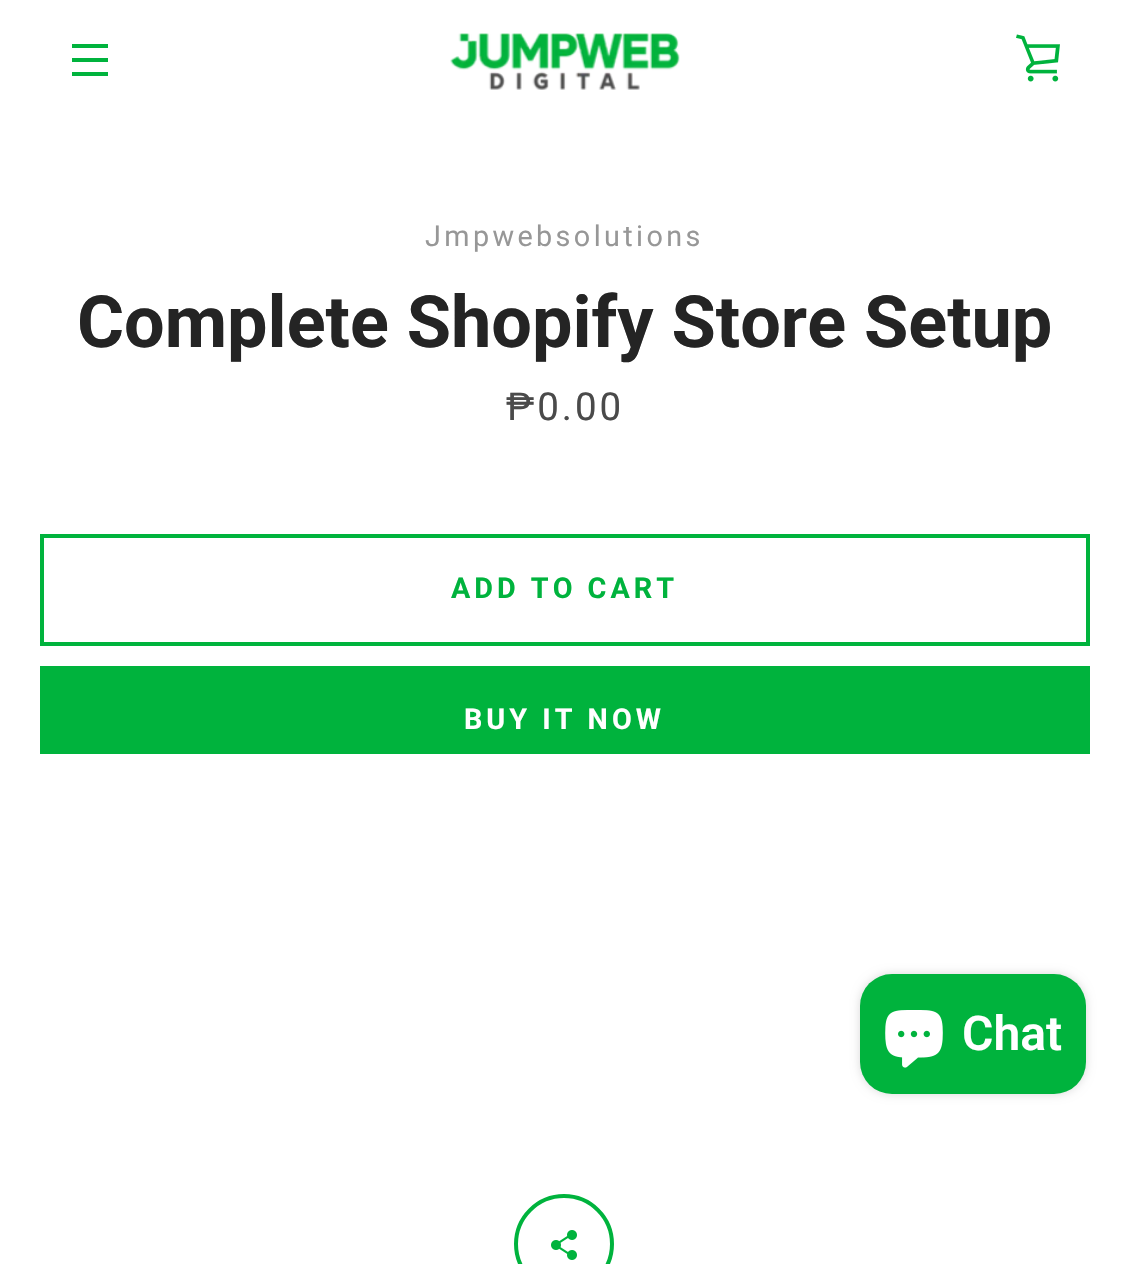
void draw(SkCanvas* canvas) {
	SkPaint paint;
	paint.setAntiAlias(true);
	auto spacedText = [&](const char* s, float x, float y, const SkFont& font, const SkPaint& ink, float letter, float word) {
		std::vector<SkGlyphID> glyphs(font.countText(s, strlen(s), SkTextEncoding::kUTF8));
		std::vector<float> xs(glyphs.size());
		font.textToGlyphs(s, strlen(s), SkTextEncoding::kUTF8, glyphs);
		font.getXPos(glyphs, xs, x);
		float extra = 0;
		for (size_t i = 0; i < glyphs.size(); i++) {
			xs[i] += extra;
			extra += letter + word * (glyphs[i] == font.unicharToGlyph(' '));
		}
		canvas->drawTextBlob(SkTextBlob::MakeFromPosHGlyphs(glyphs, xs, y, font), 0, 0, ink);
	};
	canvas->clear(0xffffffff);
	paint.setColor(0xff00b33d);
	canvas->drawRect(SkRect::MakeXYWH(72, 44, 36, 4), paint);
	canvas->drawRect(SkRect::MakeXYWH(72, 58, 36, 4), paint);
	canvas->drawRect(SkRect::MakeXYWH(72, 72, 36, 4), paint);
	canvas->drawImageRect(SkImages::DeferredFromEncodedData(SkData::MakeFromFileName("img1.png")), SkRect::MakeXYWH(450, 33, 230, 57), SkSamplingOptions());
	canvas->drawImageRect(SkImages::DeferredFromEncodedData(SkData::MakeFromFileName("img2.png")), SkRect::MakeXYWH(1016, 34, 44, 48), SkSamplingOptions());
	SkFont f1(fontMgr->matchFamilyStyle("Roboto", SkFontStyle::Normal()), 28.75);
	f1.setSubpixel(true);
	paint.setColor(0xff979797);
	spacedText("Jmpwebsolutions", 425, 246, f1, paint, 3.4, 0);
	SkFont f2(fontMgr->matchFamilyStyle("Roboto", SkFontStyle::Bold()), 72);
	f2.setSubpixel(true);
	paint.setColor(0xff242424);
	canvas->drawString("Complete Shopify Store Setup", 77, 347, f2, paint);
	SkFont f3(fontMgr->matchFamilyStyle("Roboto", SkFontStyle::Normal()), 38.5);
	f3.setSubpixel(true);
	paint.setColor(0xff4a4a4a);
	spacedText("₱0.00", 506, 420, f3, paint, 3, 0);
	paint.setStroke(true);
	paint.setStrokeWidth(4);
	paint.setColor(0xff00b33d);
	canvas->drawRect(SkRect::MakeXYWH(42, 536, 1046, 108), paint);
	SkFont f4(fontMgr->matchFamilyStyle("Roboto", SkFontStyle::Bold()), 28.75);
	f4.setSubpixel(true);
	paint.setStroke(false);
	spacedText("ADD TO CART", 451, 598, f4, paint, 4, 0);
	canvas->drawRect(SkRect::MakeXYWH(40, 666, 1050, 88), paint);
	paint.setColor(0xffffffff);
	spacedText("BUY IT NOW", 464, 729, f4, paint, 4, 0);
	paint.setStroke(true);
	paint.setColor(0xff00b33d);
	canvas->drawCircle(564, 1244, 48, paint);
	canvas->drawImageRect(SkImages::DeferredFromEncodedData(SkData::MakeFromFileName("img3.png")), SkRect::MakeXYWH(551, 1230, 26, 30), SkSamplingOptions());
	paint.setStroke(false);
	paint.setColor(0x26000000);
	paint.setMaskFilter(SkMaskFilter::MakeBlur(kNormal_SkBlurStyle, 5));
	canvas->drawRoundRect(SkRect::MakeXYWH(860, 974, 226, 120), 32, 32, paint);
	paint.setMaskFilter(nullptr);
	paint.setColor(0xff00b33d);
	canvas->drawRoundRect(SkRect::MakeXYWH(860, 974, 226, 120), 32, 32, paint);
	canvas->drawImageRect(SkImages::DeferredFromEncodedData(SkData::MakeFromFileName("img4.png")), SkRect::MakeXYWH(885, 1010, 58, 58), SkSamplingOptions());
	SkFont f5(fontMgr->matchFamilyStyle("Roboto", SkFontStyle(600, SkFontStyle::kNormal_Width, SkFontStyle::kUpright_Slant)), 48);
	f5.setSubpixel(true);
	paint.setColor(0xffffffff);
	canvas->drawString("Chat", 962, 1050, f5, paint);
}
